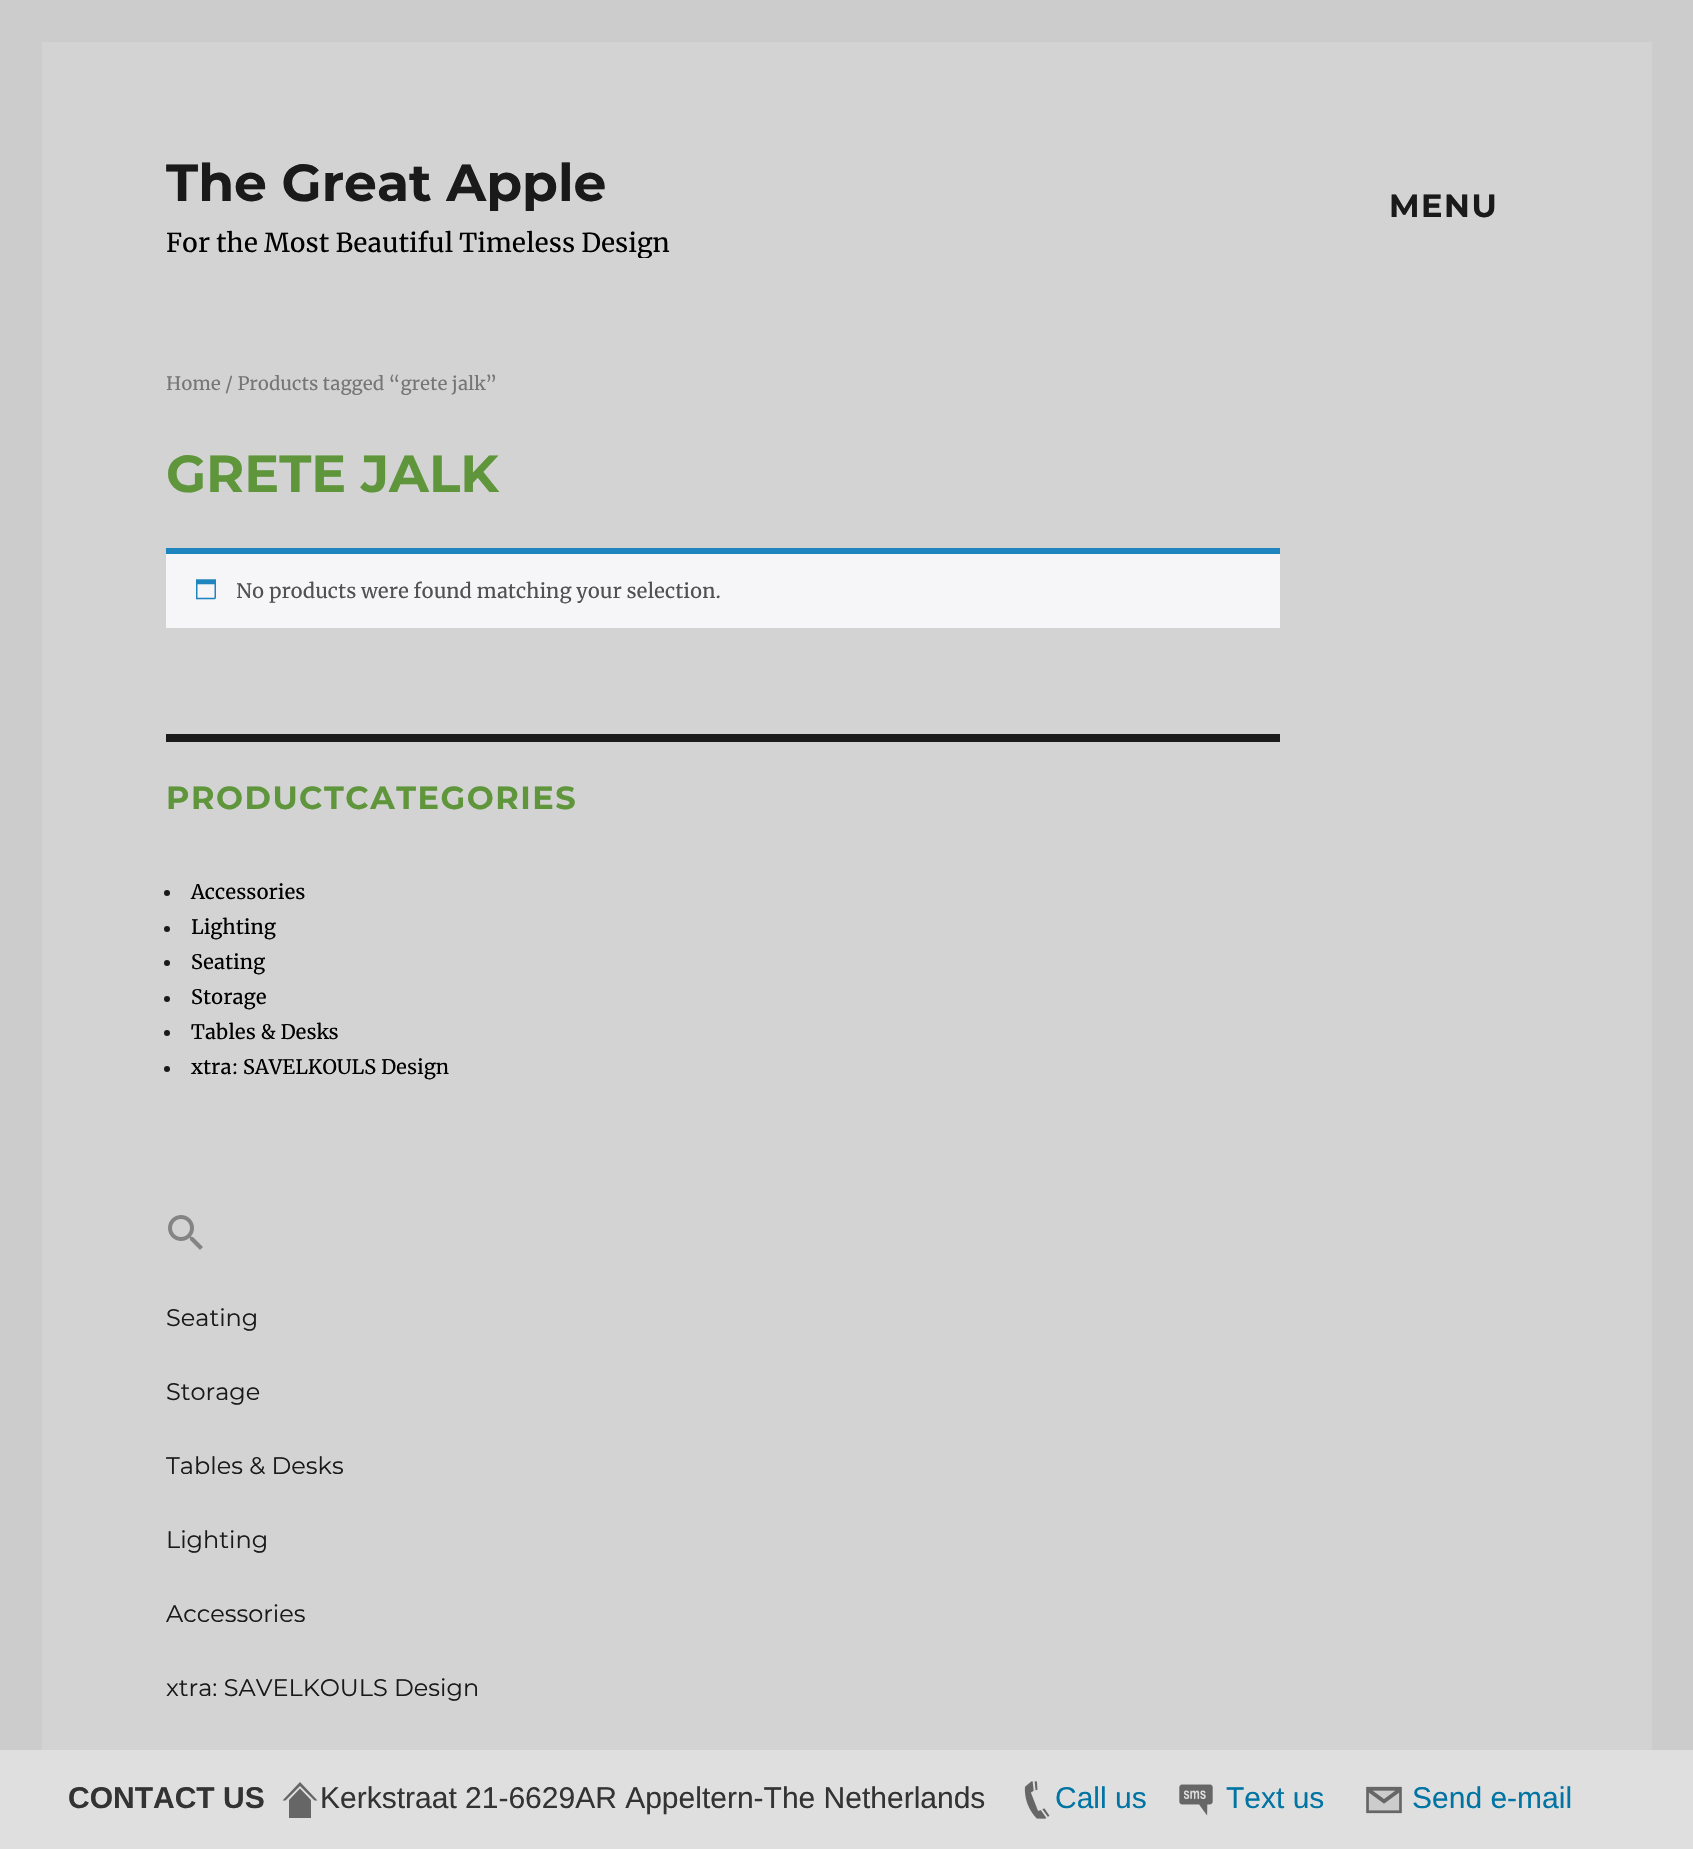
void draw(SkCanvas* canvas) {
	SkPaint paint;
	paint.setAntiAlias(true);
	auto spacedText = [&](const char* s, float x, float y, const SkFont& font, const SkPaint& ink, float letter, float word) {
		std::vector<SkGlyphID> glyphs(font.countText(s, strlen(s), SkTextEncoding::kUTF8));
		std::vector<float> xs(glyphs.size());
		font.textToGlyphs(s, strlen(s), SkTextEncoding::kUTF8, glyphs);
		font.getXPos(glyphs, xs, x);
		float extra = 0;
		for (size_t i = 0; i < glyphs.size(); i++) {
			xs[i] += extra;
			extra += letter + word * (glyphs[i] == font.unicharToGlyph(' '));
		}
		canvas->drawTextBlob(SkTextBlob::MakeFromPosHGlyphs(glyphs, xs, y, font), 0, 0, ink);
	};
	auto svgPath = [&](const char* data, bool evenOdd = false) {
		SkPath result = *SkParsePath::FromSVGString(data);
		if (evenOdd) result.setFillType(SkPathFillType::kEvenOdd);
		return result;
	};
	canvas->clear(0xffcccccc);
	paint.setColor(0xffd3d3d3);
	canvas->drawRect(SkRect::MakeXYWH(42, 42, 1610, 1708), paint);
	SkFont f1(fontMgr->matchFamilyStyle("Montserrat", SkFontStyle(100, SkFontStyle::kNormal_Width, SkFontStyle::kUpright_Slant)), 52);
	f1.setSubpixel(true);
	paint.setColor(0xff1a1a1a);
	canvas->drawString("The Great Apple", 166, 201, f1, paint);
	canvas->save();
	canvas->clipRect(SkRect::MakeXYWH(166, 152, 504, 106));
	SkFont f2(fontMgr->matchFamilyStyle("Merriweather", SkFontStyle::Normal()), 26);
	f2.setSubpixel(true);
	paint.setColor(0xff000000);
	canvas->drawString("For the Most Beautiful Timeless Design", 166, 252, f2, paint);
	canvas->restore();
	SkFont f3(fontMgr->matchFamilyStyle("Montserrat", SkFontStyle(100, SkFontStyle::kNormal_Width, SkFontStyle::kUpright_Slant)), 32);
	f3.setSubpixel(true);
	paint.setColor(0xff1a1a1a);
	spacedText("MENU", 1389, 217, f3, paint, 1.5, 0);
	SkFont f4(fontMgr->matchFamilyStyle("Merriweather", SkFontStyle::Normal()), 18.4);
	f4.setSubpixel(true);
	paint.setColor(0xff767676);
	canvas->drawString("Home / Products tagged “grete jalk”", 166, 390, f4, paint);
	paint.setColor(0xff5f963c);
	canvas->drawString("GRETE JALK", 166, 492, f1, paint);
	paint.setColor(0xfff6f5f8);
	canvas->drawRect(SkRect::MakeXYWH(166, 554, 1114, 74), paint);
	paint.setColor(0xff1e85be);
	canvas->drawRect(SkRect::MakeXYWH(166, 548, 1114, 6), paint);
	canvas->drawImageRect(SkImages::DeferredFromEncodedData(SkData::MakeFromFileName("img1.png")), SkRect::MakeXYWH(196, 579, 20, 21), SkSamplingOptions());
	SkFont f5(fontMgr->matchFamilyStyle("Merriweather", SkFontStyle::Normal()), 20);
	f5.setSubpixel(true);
	paint.setColor(0xff515151);
	canvas->drawString("No products were found matching your selection.", 236, 598, f5, paint);
	paint.setColor(0xff1a1a1a);
	canvas->drawRect(SkRect::MakeXYWH(166, 734, 1114, 8), paint);
	paint.setColor(0xff5f963c);
	spacedText("PRODUCTCATEGORIES", 166, 809, f3, paint, 1.5, 0);
	paint.setColor(0xff1a1a1a);
	canvas->drawCircle(167, 893, 3, paint);
	paint.setColor(0xff000000);
	canvas->drawString("Accessories", 191, 899, f5, paint);
	paint.setColor(0xff1a1a1a);
	canvas->drawCircle(167, 929, 3, paint);
	paint.setColor(0xff000000);
	canvas->drawString("Lighting", 191, 934, f5, paint);
	paint.setColor(0xff1a1a1a);
	canvas->drawCircle(167, 963, 3, paint);
	paint.setColor(0xff000000);
	canvas->drawString("Seating", 191, 969, f5, paint);
	paint.setColor(0xff1a1a1a);
	canvas->drawCircle(167, 999, 3, paint);
	paint.setColor(0xff000000);
	canvas->drawString("Storage", 191, 1004, f5, paint);
	paint.setColor(0xff1a1a1a);
	canvas->drawCircle(167, 1033, 3, paint);
	paint.setColor(0xff000000);
	canvas->drawString("Tables & Desks", 191, 1039, f5, paint);
	paint.setColor(0xff1a1a1a);
	canvas->drawCircle(167, 1069, 3, paint);
	paint.setColor(0xff000000);
	canvas->drawString("xtra: SAVELKOULS Design", 191, 1074, f5, paint);
	canvas->drawImageRect(SkImages::DeferredFromEncodedData(SkData::MakeFromFileName("img2.png")), SkRect::MakeXYWH(168, 1215, 35, 35), SkSamplingOptions());
	SkFont f6(fontMgr->matchFamilyStyle("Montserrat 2", SkFontStyle(100, SkFontStyle::kNormal_Width, SkFontStyle::kUpright_Slant)), 24);
	f6.setSubpixel(true);
	paint.setColor(0xff1a1a1a);
	canvas->drawString("Seating", 166, 1326, f6, paint);
	canvas->drawString("Storage", 166, 1400, f6, paint);
	canvas->drawString("Tables & Desks", 166, 1474, f6, paint);
	canvas->drawString("Lighting", 166, 1548, f6, paint);
	canvas->drawString("Accessories", 166, 1622, f6, paint);
	canvas->drawString("xtra: SAVELKOULS Design", 166, 1696, f6, paint);
	paint.setColor(0xffdfdfdf);
	canvas->drawRect(SkRect::MakeXYWH(0, 1750, 1693, 99), paint);
	SkFont f7(fontMgr->matchFamilyStyle("Liberation Sans", SkFontStyle::Bold()), 30);
	f7.setSubpixel(true);
	paint.setColor(0xff333333);
	canvas->drawString("CONTACT US", 68, 1808, f7, paint);
	SkFont f8(fontMgr->matchFamilyStyle("Liberation Sans", SkFontStyle::Normal()), 30);
	f8.setSubpixel(true);
	canvas->drawString("Kerkstraat 21-6629AR Appeltern-The Netherlands", 320, 1808, f8, paint);
	paint.setColor(0xff666666);
	canvas->drawPath(svgPath("M317.5 1800.5H314.5L300 1786L285.5 1800.5H282.5L300 1782ZM311 1800V1818H289V1800L300 1788.5Z"), paint);
	canvas->drawImageRect(SkImages::DeferredFromEncodedData(SkData::MakeFromFileName("img3.png")), SkRect::MakeXYWH(1024, 1781, 26, 38), SkSamplingOptions());
	paint.setColor(0xff0074a2);
	canvas->drawString("Call us", 1055, 1808, f8, paint);
	canvas->drawImageRect(SkImages::DeferredFromEncodedData(SkData::MakeFromFileName("img4.png")), SkRect::MakeXYWH(1179, 1784, 34, 32), SkSamplingOptions());
	canvas->drawString("Text us", 1226, 1808, f8, paint);
	canvas->drawImageRect(SkImages::DeferredFromEncodedData(SkData::MakeFromFileName("img5.png")), SkRect::MakeXYWH(1366, 1786, 36, 28), SkSamplingOptions());
	canvas->drawString("Send e-mail", 1412, 1808, f8, paint);
}
